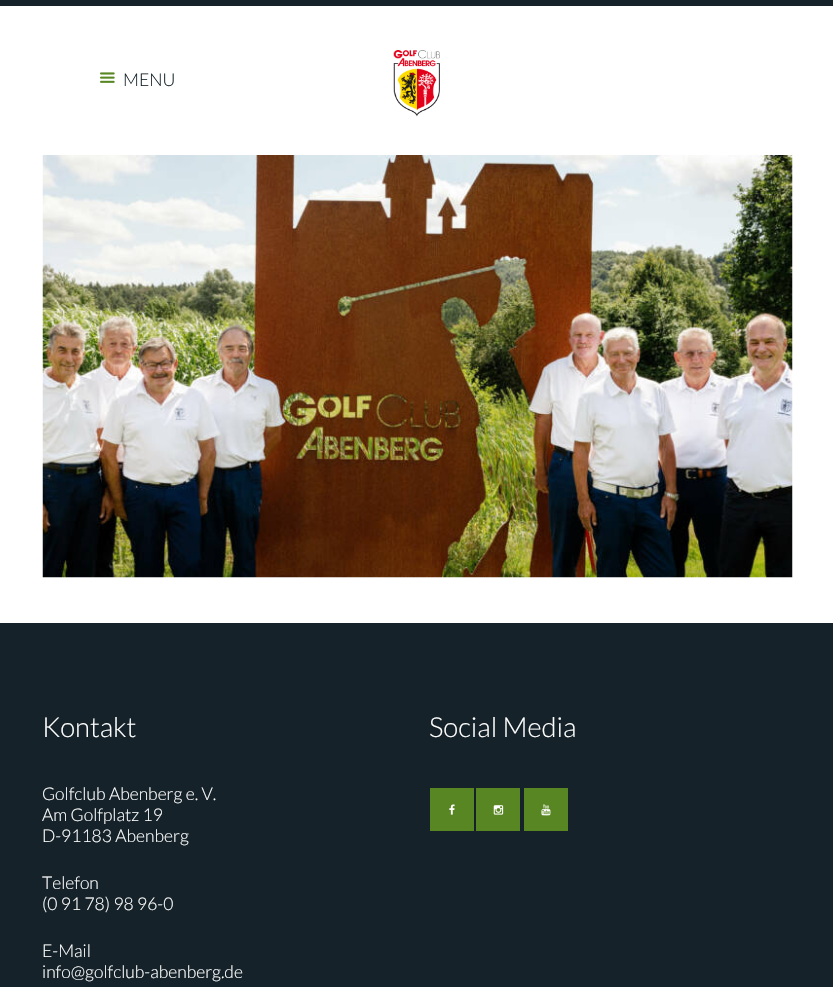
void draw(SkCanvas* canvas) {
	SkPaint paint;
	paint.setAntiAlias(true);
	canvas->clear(0xffffffff);
	paint.setColor(0xff152229);
	canvas->drawRect(SkRect::MakeXYWH(0, 0, 833, 6), paint);
	canvas->drawImageRect(SkImages::DeferredFromEncodedData(SkData::MakeFromFileName("img1.png")), SkRect::MakeXYWH(100, 72, 15, 11), SkSamplingOptions());
	SkFont f1(fontMgr->matchFamilyStyle("Lato", SkFontStyle(300, SkFontStyle::kNormal_Width, SkFontStyle::kUpright_Slant)), 17.5);
	f1.setSubpixel(true);
	canvas->drawString("MENU", 123, 86, f1, paint);
	canvas->drawImageRect(SkImages::DeferredFromEncodedData(SkData::MakeFromFileName("img2.png")), SkRect::MakeXYWH(393, 50, 47, 67), SkSamplingOptions());
	canvas->drawImageRect(SkImages::DeferredFromEncodedData(SkData::MakeFromFileName("img3.png")), SkRect::MakeXYWH(42, 155, 751, 423), SkSamplingOptions());
	canvas->drawRect(SkRect::MakeXYWH(0, 623, 833, 364), paint);
	SkFont f2(fontMgr->matchFamilyStyle("Lato", SkFontStyle(300, SkFontStyle::kNormal_Width, SkFontStyle::kUpright_Slant)), 27.5);
	f2.setSubpixel(true);
	paint.setColor(0xffffffff);
	canvas->drawString("Kontakt", 42, 737, f2, paint);
	canvas->drawString("Golfclub Abenberg e. V.", 42, 800, f1, paint);
	canvas->drawString("Am Golfplatz 19", 42, 821, f1, paint);
	canvas->drawString("D-91183 Abenberg", 42, 842, f1, paint);
	canvas->drawString("Telefon", 42, 889, f1, paint);
	canvas->drawString("(0 91 78) 98 96-0", 42, 910, f1, paint);
	canvas->drawString("E-Mail", 42, 957, f1, paint);
	canvas->drawString("info@golfclub-abenberg.de", 42, 978, f1, paint);
	canvas->drawString("Social Media", 429, 737, f2, paint);
	paint.setColor(0xff578622);
	canvas->drawRect(SkRect::MakeXYWH(430, 788, 44, 43), paint);
	canvas->drawImageRect(SkImages::DeferredFromEncodedData(SkData::MakeFromFileName("img4.png")), SkRect::MakeXYWH(449, 804, 6, 11), SkSamplingOptions());
	canvas->drawRect(SkRect::MakeXYWH(476, 788, 44, 43), paint);
	canvas->drawImageRect(SkImages::DeferredFromEncodedData(SkData::MakeFromFileName("img5.png")), SkRect::MakeXYWH(493, 805, 11, 10), SkSamplingOptions());
	canvas->drawRect(SkRect::MakeXYWH(524, 788, 44, 43), paint);
	canvas->drawImageRect(SkImages::DeferredFromEncodedData(SkData::MakeFromFileName("img6.png")), SkRect::MakeXYWH(541, 804, 10, 12), SkSamplingOptions());
}
